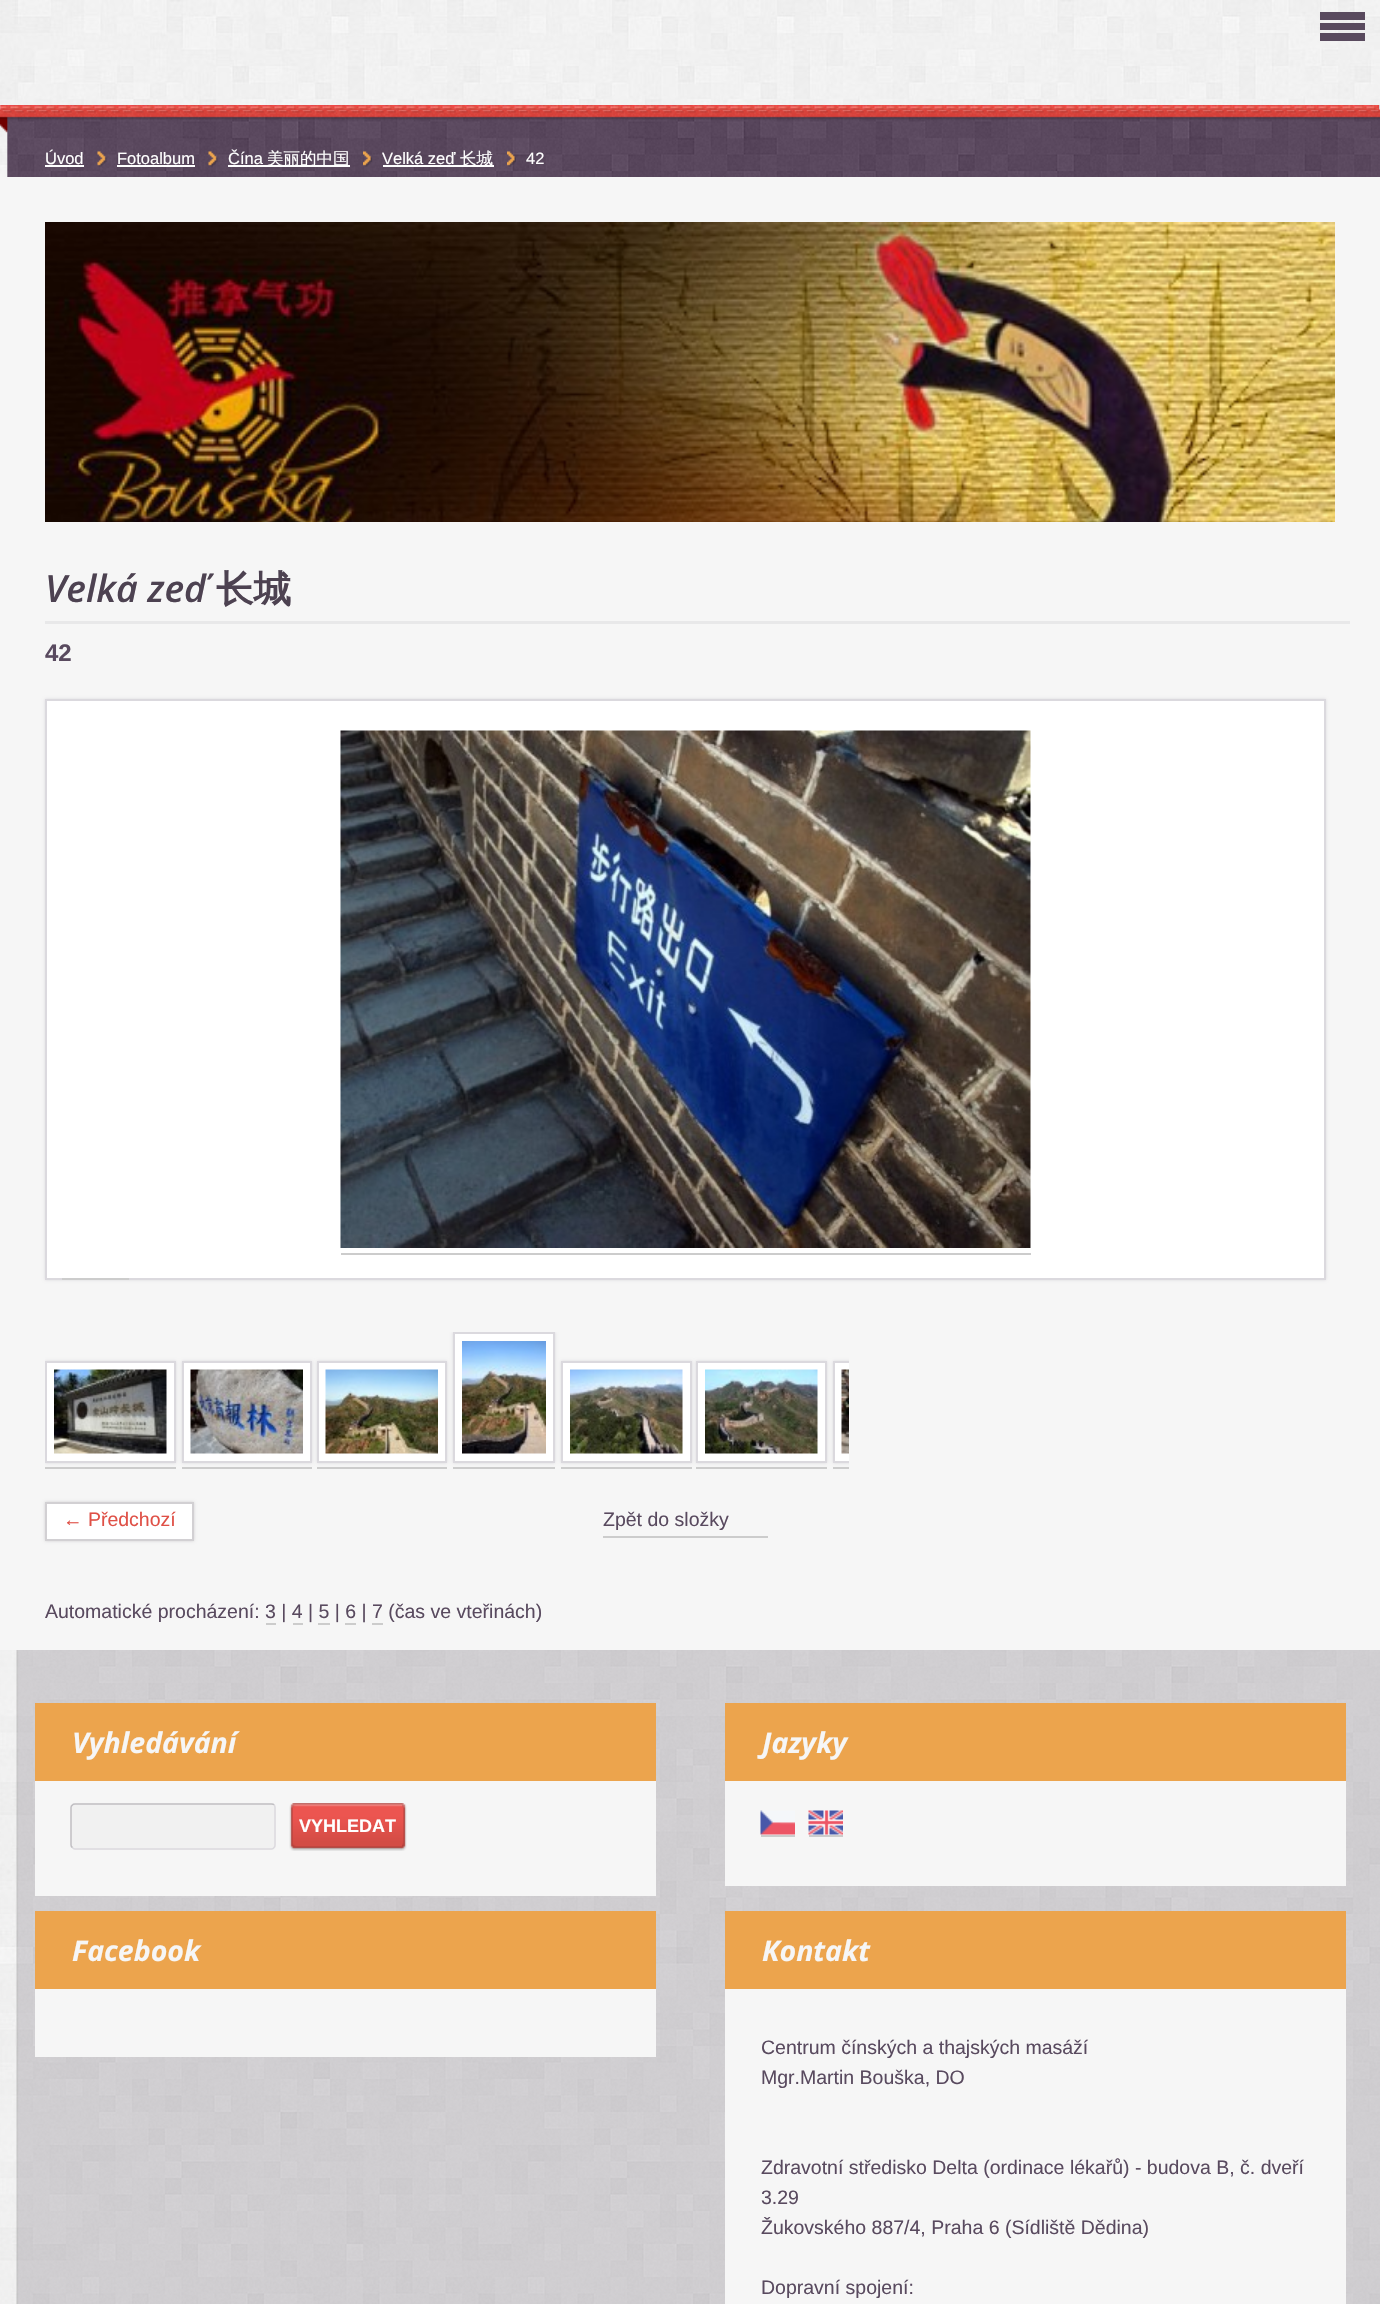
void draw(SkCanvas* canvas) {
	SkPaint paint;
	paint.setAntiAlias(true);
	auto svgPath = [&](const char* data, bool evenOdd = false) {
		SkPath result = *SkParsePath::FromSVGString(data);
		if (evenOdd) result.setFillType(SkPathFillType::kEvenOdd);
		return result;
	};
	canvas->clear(0xffffffff);
	canvas->drawImageRect(SkImages::DeferredFromEncodedData(SkData::MakeFromFileName("img1.png")), SkRect::MakeXYWH(0, 0, 17, 2304), SkSamplingOptions());
	canvas->drawImageRect(SkImages::DeferredFromEncodedData(SkData::MakeFromFileName("img2.png")), SkRect::MakeXYWH(16, 105, 1364, 2199), SkSamplingOptions());
	canvas->drawImageRect(SkImages::DeferredFromEncodedData(SkData::MakeFromFileName("img3.png")), SkRect::MakeXYWH(16, 0, 1364, 105), SkSamplingOptions());
	paint.setColor(0xff594a5e);
	canvas->drawRect(SkRect::MakeXYWH(1320, 12, 45, 8), paint);
	canvas->drawRect(SkRect::MakeXYWH(1320, 23, 45, 7), paint);
	canvas->drawRect(SkRect::MakeXYWH(1320, 33, 45, 8), paint);
	canvas->drawImageRect(SkImages::DeferredFromEncodedData(SkData::MakeFromFileName("img9.png")), SkRect::MakeXYWH(0, 109, 1380, 68), SkSamplingOptions());
	SkFont f1(fontMgr->matchFamilyStyle("Liberation Sans", SkFontStyle::Normal()), 16.5);
	f1.setSubpixel(true);
	paint.setColor(0xffffffff);
	canvas->drawString("Úvod", 45, 164, f1, paint);
	canvas->drawRect(SkRect::MakeXYWH(45, 165, 39, 2), paint);
	canvas->drawImageRect(SkImages::DeferredFromEncodedData(SkData::MakeFromFileName("img4.png")), SkRect::MakeXYWH(97, 151, 10, 16), SkSamplingOptions());
	canvas->drawString("Fotoalbum", 117, 164, f1, paint);
	canvas->drawRect(SkRect::MakeXYWH(117, 165, 78, 2), paint);
	canvas->drawImageRect(SkImages::DeferredFromEncodedData(SkData::MakeFromFileName("img5.png")), SkRect::MakeXYWH(208, 151, 10, 16), SkSamplingOptions());
	canvas->drawString("Čína", 228, 164, f1, paint);
	canvas->drawRect(SkRect::MakeXYWH(228, 165, 122, 2), paint);
	SkFont f2(fontMgr->matchFamilyStyle("WenQuanYi Zen Hei", SkFontStyle(500, SkFontStyle::kNormal_Width, SkFontStyle::kUpright_Slant)), 16.5);
	f2.setSubpixel(true);
	canvas->drawString("美丽的中国", 267, 164, f2, paint);
	canvas->drawImageRect(SkImages::DeferredFromEncodedData(SkData::MakeFromFileName("img6.png")), SkRect::MakeXYWH(363, 151, 9, 16), SkSamplingOptions());
	canvas->drawString("Velká zeď", 382, 164, f1, paint);
	canvas->drawRect(SkRect::MakeXYWH(383, 165, 111, 2), paint);
	canvas->drawString("长城", 460, 164, f2, paint);
	canvas->drawImageRect(SkImages::DeferredFromEncodedData(SkData::MakeFromFileName("img7.png")), SkRect::MakeXYWH(507, 151, 9, 16), SkSamplingOptions());
	canvas->drawString("42", 526, 164, f1, paint);
	paint.setColor(0xffd9433e);
	canvas->drawRect(SkRect::MakeXYWH(0, 105, 1379, 5), paint);
	canvas->drawImageRect(SkImages::DeferredFromEncodedData(SkData::MakeFromFileName("img8.png")), SkRect::MakeXYWH(0, 105, 1379, 5), SkSamplingOptions());
	paint.setColor(0xfff6f6f6);
	canvas->drawRect(SkRect::MakeXYWH(0, 177, 1380, 1473), paint);
	canvas->drawImageRect(SkImages::DeferredFromEncodedData(SkData::MakeFromFileName("img10.png")), SkRect::MakeXYWH(45, 222, 1290, 300), SkSamplingOptions());
	paint.setColor(0xffe8e8e9);
	canvas->drawRect(SkRect::MakeXYWH(45, 621, 1305, 3), paint);
	SkFont f3(fontMgr->matchFamilyStyle("Open Sans", SkFontStyle(600, SkFontStyle::kNormal_Width, SkFontStyle::kItalic_Slant)), 37.5);
	f3.setSubpixel(true);
	paint.setColor(0xff4d4251);
	canvas->drawString("Velká zeď", 45, 602, f3, paint);
	SkFont f4(fontMgr->matchFamilyStyle("WenQuanYi Zen Hei", SkFontStyle::Bold()), 37.5);
	f4.setSubpixel(true);
	canvas->drawString("长城", 216, 602, f4, paint);
	SkFont f5(fontMgr->matchFamilyStyle("Liberation Sans", SkFontStyle::Bold()), 24);
	f5.setSubpixel(true);
	paint.setColor(0xff594a5f);
	canvas->drawString("42", 45, 661, f5, paint);
	paint.setColor(0xffdbd9de);
	paint.setMaskFilter(SkMaskFilter::MakeBlur(kNormal_SkBlurStyle, 1.5));
	canvas->drawRect(SkRect::MakeXYWH(45, 699, 1281, 581), paint);
	paint.setMaskFilter(nullptr);
	paint.setColor(0xffffffff);
	canvas->drawRect(SkRect::MakeXYWH(46, 700, 1279, 579), paint);
	paint.setStroke(true);
	paint.setStrokeWidth(2);
	paint.setColor(0xffdbd9de);
	canvas->drawRect(SkRect::MakeXYWH(46, 700, 1279, 579), paint);
	canvas->drawImageRect(SkImages::DeferredFromEncodedData(SkData::MakeFromFileName("img11.png")), SkRect::MakeXYWH(340, 730, 691, 518), SkSamplingOptions());
	paint.setStroke(false);
	paint.setColor(0xffcccccc);
	canvas->drawRect(SkRect::MakeXYWH(341, 1253, 690, 2), paint);
	canvas->drawRect(SkRect::MakeXYWH(62, 1278, 67, 2), paint);
	canvas->drawRect(SkRect::MakeXYWH(453, 1467, 102, 2), paint);
	canvas->save();
	canvas->clipRect(SkRect::MakeXYWH(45, 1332, 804, 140));
	paint.setColor(0xffdbd9de);
	paint.setMaskFilter(SkMaskFilter::MakeBlur(kNormal_SkBlurStyle, 1.5));
	canvas->drawRect(SkRect::MakeXYWH(453, 1332, 102, 131), paint);
	paint.setMaskFilter(nullptr);
	canvas->restore();
	paint.setColor(0xffffffff);
	canvas->drawRect(SkRect::MakeXYWH(454, 1333, 100, 129), paint);
	paint.setStroke(true);
	paint.setColor(0xffdbd9de);
	canvas->drawRect(SkRect::MakeXYWH(454, 1333, 100, 129), paint);
	paint.setStroke(false);
	paint.setColor(0xffcccccc);
	canvas->drawRect(SkRect::MakeXYWH(45, 1467, 131, 2), paint);
	canvas->save();
	canvas->clipRect(SkRect::MakeXYWH(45, 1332, 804, 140));
	paint.setColor(0xffdbd9de);
	paint.setMaskFilter(SkMaskFilter::MakeBlur(kNormal_SkBlurStyle, 1.5));
	canvas->drawRect(SkRect::MakeXYWH(45, 1361, 131, 102), paint);
	paint.setMaskFilter(nullptr);
	canvas->restore();
	paint.setColor(0xffcccccc);
	canvas->drawRect(SkRect::MakeXYWH(182, 1467, 130, 2), paint);
	paint.setColor(0xffdbd9de);
	paint.setMaskFilter(SkMaskFilter::MakeBlur(kNormal_SkBlurStyle, 1.5));
	canvas->drawRect(SkRect::MakeXYWH(182, 1361, 130, 102), paint);
	paint.setMaskFilter(nullptr);
	paint.setColor(0xffffffff);
	canvas->drawRect(SkRect::MakeXYWH(183, 1362, 128, 100), paint);
	paint.setStroke(true);
	paint.setColor(0xffdbd9de);
	canvas->drawRect(SkRect::MakeXYWH(183, 1362, 128, 100), paint);
	paint.setStroke(false);
	paint.setColor(0xffcccccc);
	canvas->drawRect(SkRect::MakeXYWH(317, 1467, 130, 2), paint);
	paint.setColor(0xffdbd9de);
	paint.setMaskFilter(SkMaskFilter::MakeBlur(kNormal_SkBlurStyle, 1.5));
	canvas->drawRect(SkRect::MakeXYWH(317, 1361, 130, 102), paint);
	paint.setMaskFilter(nullptr);
	canvas->drawImageRect(SkImages::DeferredFromEncodedData(SkData::MakeFromFileName("img12.png")), SkRect::MakeXYWH(462, 1341, 84, 113), SkSamplingOptions());
	paint.setColor(0xffcccccc);
	canvas->drawRect(SkRect::MakeXYWH(561, 1467, 131, 2), paint);
	paint.setColor(0xffdbd9de);
	paint.setMaskFilter(SkMaskFilter::MakeBlur(kNormal_SkBlurStyle, 1.5));
	canvas->drawRect(SkRect::MakeXYWH(561, 1361, 131, 102), paint);
	paint.setMaskFilter(nullptr);
	paint.setColor(0xffffffff);
	canvas->drawRect(SkRect::MakeXYWH(562, 1362, 129, 100), paint);
	paint.setStroke(true);
	paint.setColor(0xffdbd9de);
	canvas->drawRect(SkRect::MakeXYWH(562, 1362, 129, 100), paint);
	paint.setStroke(false);
	paint.setColor(0xffcccccc);
	canvas->drawRect(SkRect::MakeXYWH(696, 1467, 131, 2), paint);
	paint.setColor(0xffdbd9de);
	paint.setMaskFilter(SkMaskFilter::MakeBlur(kNormal_SkBlurStyle, 1.5));
	canvas->drawRect(SkRect::MakeXYWH(696, 1361, 131, 102), paint);
	paint.setMaskFilter(nullptr);
	paint.setColor(0xffcccccc);
	canvas->drawRect(SkRect::MakeXYWH(833, 1467, 16, 2), paint);
	canvas->save();
	canvas->clipRect(SkRect::MakeXYWH(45, 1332, 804, 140));
	paint.setColor(0xffdbd9de);
	paint.setMaskFilter(SkMaskFilter::MakeBlur(kNormal_SkBlurStyle, 1.5));
	canvas->drawRect(SkRect::MakeXYWH(833, 1361, 130, 102), paint);
	paint.setMaskFilter(nullptr);
	canvas->restore();
	paint.setColor(0xffffffff);
	canvas->drawRect(SkRect::MakeXYWH(46, 1362, 129, 100), paint);
	paint.setStroke(true);
	paint.setColor(0xffdbd9de);
	canvas->drawRect(SkRect::MakeXYWH(46, 1362, 129, 100), paint);
	paint.setStroke(false);
	paint.setColor(0xffffffff);
	canvas->drawRect(SkRect::MakeXYWH(318, 1362, 128, 100), paint);
	paint.setStroke(true);
	paint.setColor(0xffdbd9de);
	canvas->drawRect(SkRect::MakeXYWH(318, 1362, 128, 100), paint);
	paint.setStroke(false);
	paint.setColor(0xffffffff);
	canvas->drawRect(SkRect::MakeXYWH(697, 1362, 129, 100), paint);
	paint.setStroke(true);
	paint.setColor(0xffdbd9de);
	canvas->drawRect(SkRect::MakeXYWH(697, 1362, 129, 100), paint);
	paint.setStroke(false);
	paint.setColor(0xffffffff);
	canvas->drawRect(SkRect::MakeXYWH(835, 1363, 14, 98), paint);
	canvas->save();
	canvas->clipRect(SkRect::MakeXYWH(45, 1332, 804, 140));
	paint.setStroke(true);
	paint.setColor(0xffdbd9de);
	canvas->drawRect(SkRect::MakeXYWH(834, 1362, 128, 100), paint);
	canvas->restore();
	canvas->drawImageRect(SkImages::DeferredFromEncodedData(SkData::MakeFromFileName("img13.png")), SkRect::MakeXYWH(54, 1369, 113, 85), SkSamplingOptions());
	canvas->drawImageRect(SkImages::DeferredFromEncodedData(SkData::MakeFromFileName("img14.png")), SkRect::MakeXYWH(190, 1369, 113, 85), SkSamplingOptions());
	canvas->drawImageRect(SkImages::DeferredFromEncodedData(SkData::MakeFromFileName("img15.png")), SkRect::MakeXYWH(325, 1369, 113, 85), SkSamplingOptions());
	canvas->drawImageRect(SkImages::DeferredFromEncodedData(SkData::MakeFromFileName("img16.png")), SkRect::MakeXYWH(570, 1369, 113, 85), SkSamplingOptions());
	canvas->drawImageRect(SkImages::DeferredFromEncodedData(SkData::MakeFromFileName("img17.png")), SkRect::MakeXYWH(705, 1369, 113, 85), SkSamplingOptions());
	canvas->drawImageRect(SkImages::DeferredFromEncodedData(SkData::MakeFromFileName("img18.png")), SkRect::MakeXYWH(841, 1369, 8, 85), SkSamplingOptions());
	paint.setStroke(false);
	paint.setColor(0xffd2d0d3);
	paint.setMaskFilter(SkMaskFilter::MakeBlur(kNormal_SkBlurStyle, 1.5));
	canvas->drawRect(SkRect::MakeXYWH(45, 1502, 149, 39), paint);
	paint.setMaskFilter(nullptr);
	paint.setColor(0xffffffff);
	canvas->drawRect(SkRect::MakeXYWH(46, 1503, 147, 37), paint);
	paint.setStroke(true);
	paint.setColor(0xffd2d0d3);
	canvas->drawRect(SkRect::MakeXYWH(46, 1503, 147, 37), paint);
	SkFont f6(fontMgr->matchFamilyStyle("Liberation Sans", SkFontStyle::Normal()), 19.5);
	f6.setSubpixel(true);
	paint.setStroke(false);
	paint.setColor(0xffdf5046);
	canvas->drawString("← Předchozí", 63, 1526, f6, paint);
	paint.setColor(0xffcccccc);
	canvas->drawRect(SkRect::MakeXYWH(603, 1536, 165, 2), paint);
	paint.setColor(0xff594a5f);
	canvas->drawString("Zpět do složky", 603, 1526, f6, paint);
	canvas->drawString("Automatické procházení: 3 | 4 | 5 | 6 | 7 (čas ve vteřinách)", 45, 1618, f6, paint);
	paint.setColor(0xffcccccc);
	canvas->drawRect(SkRect::MakeXYWH(266, 1623, 10, 2), paint);
	canvas->drawRect(SkRect::MakeXYWH(293, 1623, 10, 2), paint);
	canvas->drawRect(SkRect::MakeXYWH(318, 1623, 12, 2), paint);
	canvas->drawRect(SkRect::MakeXYWH(345, 1623, 11, 2), paint);
	canvas->drawRect(SkRect::MakeXYWH(372, 1623, 11, 2), paint);
	paint.setColor(0xffeca44d);
	canvas->drawRect(SkRect::MakeXYWH(35, 1703, 621, 78), paint);
	SkFont f7(fontMgr->matchFamilyStyle("Open Sans", SkFontStyle::BoldItalic()), 28.5);
	f7.setSubpixel(true);
	paint.setColor(0xfff6f6f6);
	canvas->drawString("Vyhledávání", 72, 1753, f7, paint);
	canvas->drawRect(SkRect::MakeXYWH(35, 1781, 621, 115), paint);
	paint.setColor(0xfff1f1f1);
	canvas->drawRoundRect(SkRect::MakeXYWH(71, 1803, 205, 47), 5, 5, paint);
	paint.setStroke(true);
	paint.setStrokeWidth(1.5);
	paint.setColor(0xffdcdadf);
	canvas->drawPath(svgPath("M274 1805C275 1805.5 275 1806.5 275 1807.5V1845C275 1846 275 1847 274 1847.5C273.5 1848.5 272.5 1849 271.5 1849H75C74 1849 73 1848.5 72.5 1847.5"), paint);
	paint.setColor(0xffc1bfc3);
	canvas->drawPath(svgPath("M72.5 1847.5C71.5 1847 71 1846 71 1845V1807.5C71 1806.5 71.5 1805.5 72.5 1805C73 1804 74 1804 75 1804H271.5C272.5 1804 273.5 1804 274 1805"), paint);
	canvas->drawImageRect(SkImages::DeferredFromEncodedData(SkData::MakeFromFileName("img19.png")), SkRect::MakeXYWH(402, 1803, 5, 48), SkSamplingOptions());
	canvas->drawImageRect(SkImages::DeferredFromEncodedData(SkData::MakeFromFileName("img20.png")), SkRect::MakeXYWH(289, 1803, 113, 48), SkSamplingOptions());
	SkFont f8(fontMgr->matchFamilyStyle("Liberation Sans", SkFontStyle::Bold()), 18);
	f8.setSubpixel(true);
	paint.setStroke(false);
	paint.setColor(0xffffffff);
	canvas->drawString("VYHLEDAT", 299, 1832, f8, paint);
	paint.setColor(0xffeca44d);
	canvas->drawRect(SkRect::MakeXYWH(725, 1703, 621, 78), paint);
	paint.setColor(0xfff6f6f6);
	canvas->drawString("Jazyky", 762, 1753, f7, paint);
	canvas->drawRect(SkRect::MakeXYWH(725, 1781, 621, 105), paint);
	paint.setColor(0xffcccccc);
	canvas->drawRect(SkRect::MakeXYWH(761, 1835, 34, 2), paint);
	canvas->drawImageRect(SkImages::DeferredFromEncodedData(SkData::MakeFromFileName("img21.png")), SkRect::MakeXYWH(760, 1810, 35, 25), SkSamplingOptions());
	canvas->drawRect(SkRect::MakeXYWH(809, 1835, 34, 2), paint);
	canvas->drawImageRect(SkImages::DeferredFromEncodedData(SkData::MakeFromFileName("img22.png")), SkRect::MakeXYWH(808, 1810, 35, 25), SkSamplingOptions());
	paint.setColor(0xffeca44d);
	canvas->drawRect(SkRect::MakeXYWH(35, 1911, 621, 78), paint);
	paint.setColor(0xfff6f6f6);
	canvas->drawString("Facebook", 72, 1961, f7, paint);
	canvas->drawRect(SkRect::MakeXYWH(35, 1989, 621, 68), paint);
	paint.setColor(0xffeca44d);
	canvas->drawRect(SkRect::MakeXYWH(725, 1911, 621, 78), paint);
	paint.setColor(0xfff6f6f6);
	canvas->drawString("Kontakt", 762, 1961, f7, paint);
	canvas->drawRect(SkRect::MakeXYWH(725, 1989, 621, 315), paint);
	paint.setColor(0xff594a5f);
	canvas->drawString("Centrum čínských a thajských masáží", 761, 2054, f6, paint);
	canvas->drawString("Mgr.Martin Bouška, DO", 761, 2084, f6, paint);
	canvas->drawString("Zdravotní středisko Delta (ordinace lékařů) - budova B, č. dveří", 761, 2174, f6, paint);
	canvas->drawString("3.29", 761, 2204, f6, paint);
	canvas->drawString("Žukovského 887/4, Praha 6 (Sídliště Dědina)", 761, 2234, f6, paint);
	canvas->drawString("Dopravní spojení:", 761, 2294, f6, paint);
}
